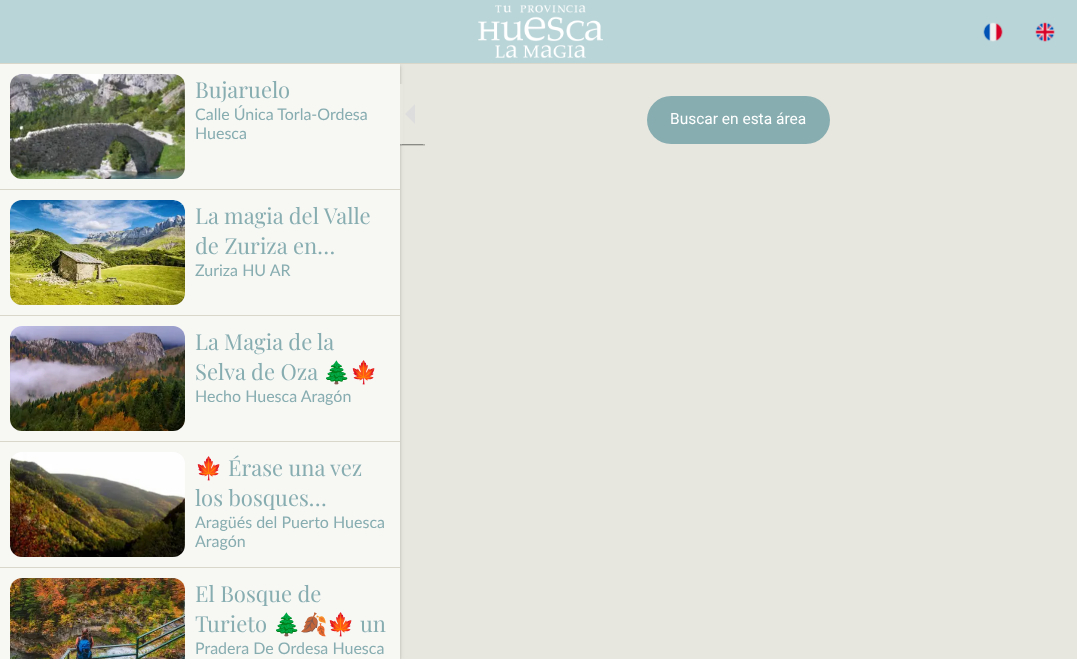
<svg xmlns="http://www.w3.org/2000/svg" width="1077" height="659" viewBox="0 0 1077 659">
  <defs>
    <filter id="blur1" x="-50%" y="-200%" width="200%" height="500%"><feGaussianBlur stdDeviation="2.5"/></filter>
    <filter id="blur2" x="-50%" y="-200%" width="200%" height="500%"><feGaussianBlur stdDeviation="1"/></filter>
  </defs>
  <rect width="100%" height="100%" fill="#e8e7df"/>
  <rect x="0" y="65" width="400" height="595" fill="#000000" fill-opacity="0.12" filter="url(#blur1)"/>
  <rect x="0" y="66" width="400" height="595" fill="#000000" fill-opacity="0.14" filter="url(#blur2)"/>
  <rect x="0" y="0" width="1077" height="63" fill="#bad5d8"/>
  <rect x="0" y="63" width="1077" height="1" fill="#d9d7ca"/>
  <image x="478" y="5" width="125" height="53" href="img1.png"/>
  <image x="983" y="22" width="20" height="20" href="img2.png"/>
  <image x="1035" y="22" width="20" height="20" href="img3.png"/>
  <rect x="0" y="64" width="400" height="125" fill="#f7f7f4"/>
  <image x="10" y="74" width="175" height="105" href="img4.png"/>
  <text x="195" y="98" font-family="Playfair Display" font-size="22" fill="#87adb0">Bujaruelo</text>
  <text x="195" y="120" font-family="Lato" font-size="16" fill="#87adb0">Calle Única Torla-Ordesa</text>
  <text x="195" y="139" font-family="Lato" font-size="16" fill="#87adb0">Huesca</text>
  <rect x="0" y="190" width="400" height="125" fill="#f7f7f4"/>
  <rect x="0" y="189" width="400" height="1" fill="#d9d7ca"/>
  <image x="10" y="200" width="175" height="105" href="img5.png"/>
  <text x="195" y="224" font-family="Playfair Display" font-size="22" fill="#87adb0">La magia del Valle</text>
  <text x="195" y="254" font-family="Playfair Display" font-size="22" fill="#87adb0">de Zuriza en…</text>
  <text x="195" y="276" font-family="Lato" font-size="16" fill="#87adb0">Zuriza HU AR</text>
  <rect x="0" y="316" width="400" height="125" fill="#f7f7f4"/>
  <rect x="0" y="315" width="400" height="1" fill="#d9d7ca"/>
  <image x="10" y="326" width="175" height="105" href="img6.png"/>
  <text x="195" y="350" font-family="Playfair Display" font-size="22" fill="#87adb0">La Magia de la</text>
  <text x="195" y="380" font-family="Playfair Display" font-size="22" fill="#87adb0">Selva de Oza</text>
  <text x="323" y="380" font-family="Noto Color Emoji" font-size="22" fill="#87adb0">🌲🍁</text>
  <text x="195" y="402" font-family="Lato" font-size="16" fill="#87adb0">Hecho Huesca Aragón</text>
  <rect x="0" y="442" width="400" height="125" fill="#f7f7f4"/>
  <rect x="0" y="441" width="400" height="1" fill="#d9d7ca"/>
  <image x="10" y="452" width="175" height="105" href="img7.png"/>
  <text x="195" y="476" font-family="Noto Color Emoji" font-size="22" fill="#87adb0">🍁</text>
  <text x="228" y="476" font-family="Playfair Display" font-size="22" fill="#87adb0">Érase una vez</text>
  <text x="195" y="506" font-family="Playfair Display" font-size="22" fill="#87adb0">los bosques…</text>
  <text x="195" y="528" font-family="Lato" font-size="16" fill="#87adb0">Aragüés del Puerto Huesca</text>
  <text x="195" y="547" font-family="Lato" font-size="16" fill="#87adb0">Aragón</text>
  <rect x="0" y="568" width="400" height="91" fill="#f7f7f4"/>
  <rect x="0" y="567" width="400" height="1" fill="#d9d7ca"/>
  <image x="10" y="578" width="175" height="81" href="img8.png"/>
  <text x="195" y="602" font-family="Playfair Display" font-size="22" fill="#87adb0">El Bosque de</text>
  <text x="195" y="632" font-family="Playfair Display" font-size="22" fill="#87adb0">Turieto</text>
  <text x="273" y="632" font-family="Noto Color Emoji" font-size="22" fill="#87adb0">🌲🍂🍁</text>
  <text x="360" y="632" font-family="Playfair Display" font-size="22" fill="#87adb0">un</text>
  <text x="195" y="654" font-family="Lato" font-size="16" fill="#87adb0">Pradera De Ordesa Huesca</text>
  <rect x="400" y="144" width="25" height="1" fill="#000000" fill-opacity="0.12"/>
  <rect x="400" y="144" width="25" height="2" fill="#000000" fill-opacity="0.14"/>
  <rect x="402" y="144" width="21" height="1" fill="#000000" fill-opacity="0.2"/>
  <rect x="400" y="84" width="3" height="60" fill="#e8e7df"/>
  <path d="M415 104V124L405 114Z" fill="#dddddd"/>
  <rect x="647" y="96" width="183" height="48" rx="24" fill="#87adb0"/>
  <text x="670" y="124" font-family="Roboto" font-size="15.5" fill="#ffffff">Buscar en esta área</text>
</svg>
